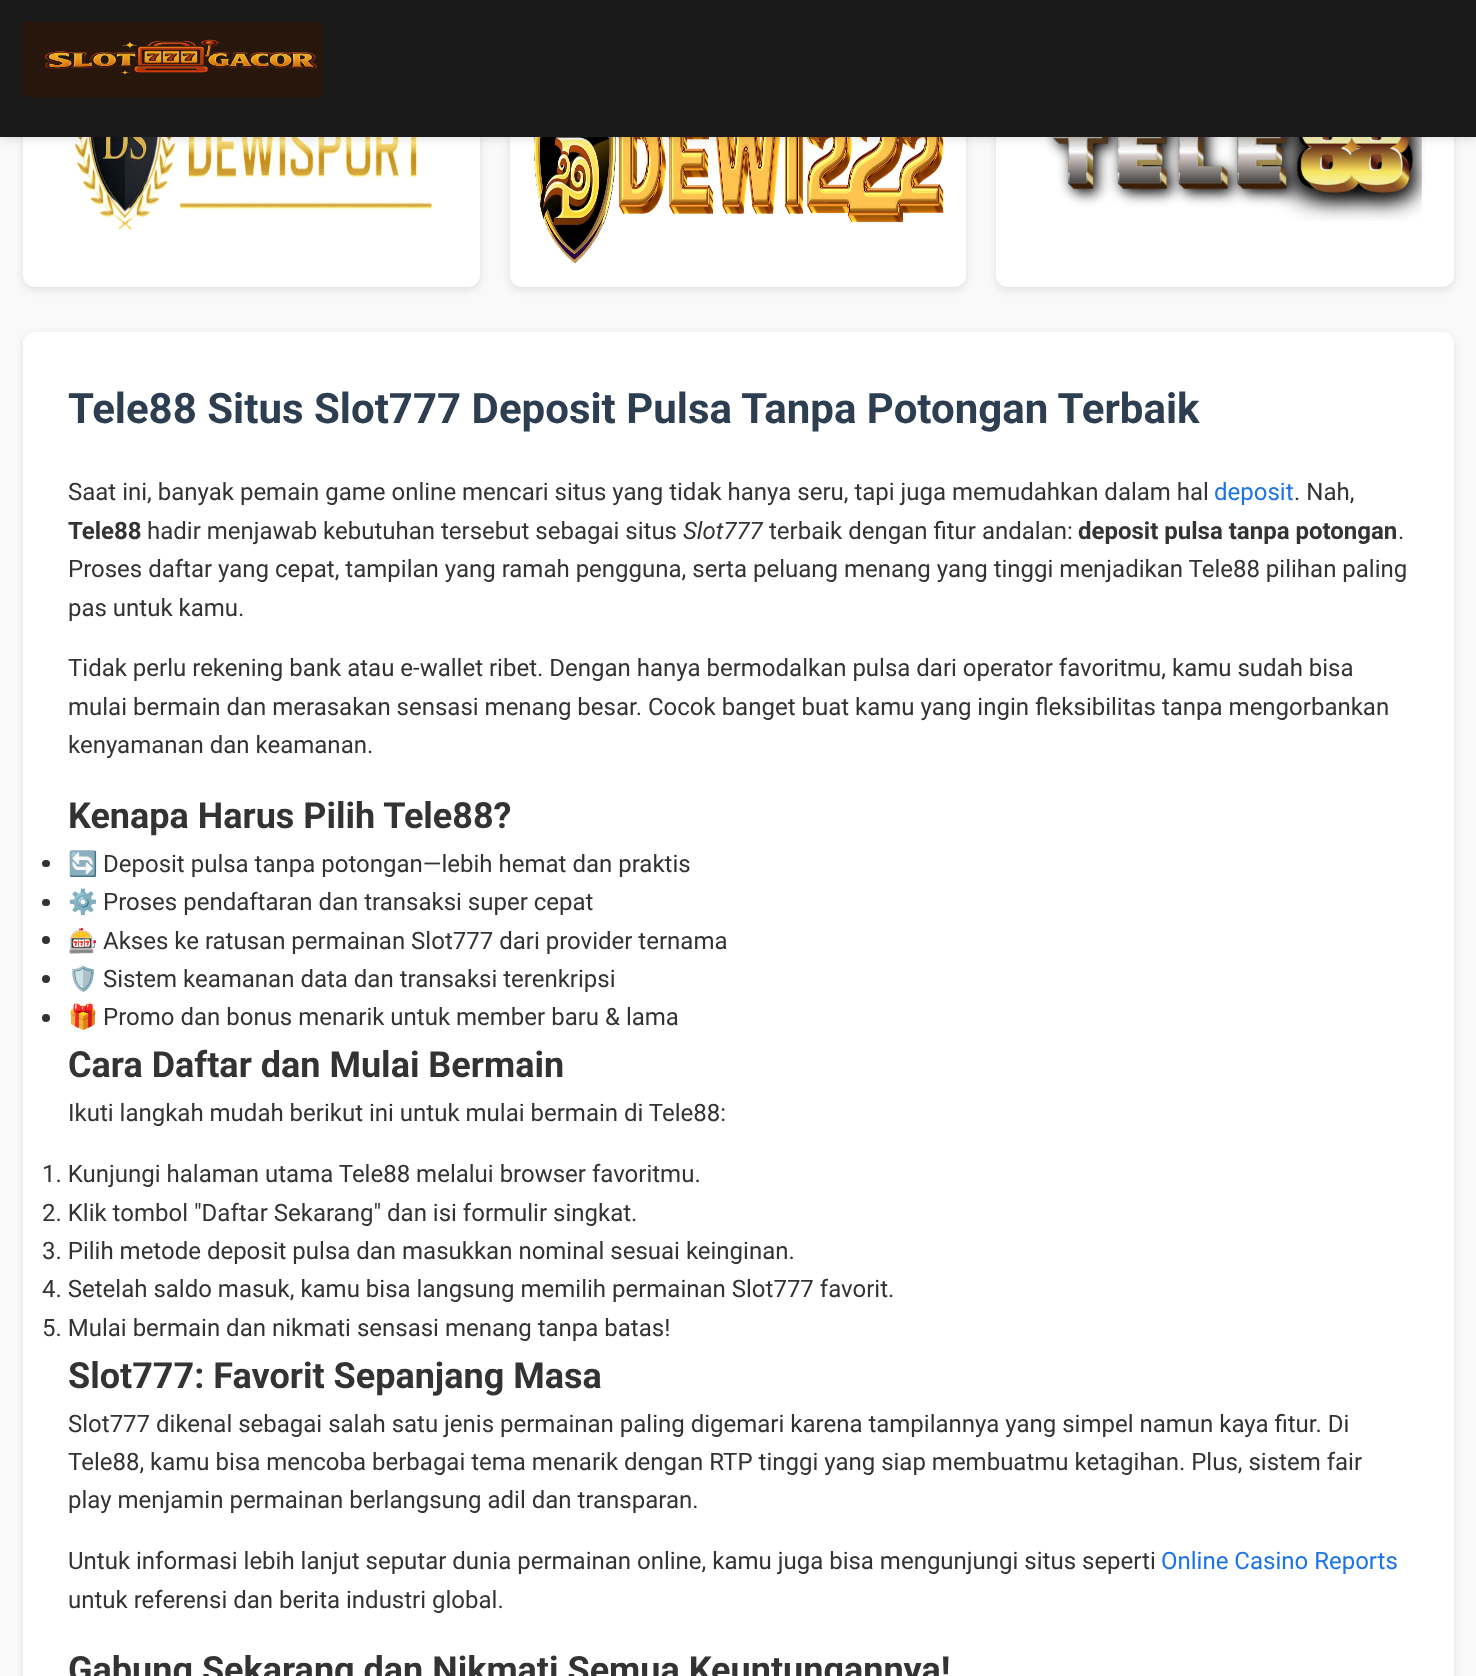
<svg xmlns="http://www.w3.org/2000/svg" width="1476" height="1676" viewBox="0 0 1476 1676">
  <defs>
    <filter id="blur1" x="-50%" y="-200%" width="200%" height="500%"><feGaussianBlur stdDeviation="4"/></filter>
  </defs>
  <rect width="100%" height="100%" fill="#f9f9f9"/>
  <rect x="23" y="24" width="457" height="266" rx="12" fill="#000000" fill-opacity="0.1" filter="url(#blur1)"/>
  <rect x="23" y="21" width="457" height="266" rx="12" fill="#ffffff"/>
  <image x="74" y="137" width="358" height="94" href="img2.png"/>
  <rect x="510" y="24" width="456" height="266" rx="12" fill="#000000" fill-opacity="0.1" filter="url(#blur1)"/>
  <rect x="510" y="21" width="456" height="266" rx="12" fill="#ffffff"/>
  <image x="534" y="137" width="410" height="127" href="img3.png"/>
  <rect x="996" y="24" width="458" height="266" rx="12" fill="#000000" fill-opacity="0.1" filter="url(#blur1)"/>
  <rect x="996" y="21" width="458" height="266" rx="12" fill="#ffffff"/>
  <image x="1045" y="137" width="380" height="84" href="img4.png"/>
  <rect x="0" y="3" width="1476" height="137" fill="#000000" fill-opacity="0.1" filter="url(#blur1)"/>
  <rect x="0" y="0" width="1476" height="137" fill="#1a1a1a"/>
  <image x="22" y="22" width="301" height="75" href="img1.png"/>
  <rect x="23" y="335" width="1431" height="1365" rx="12" fill="#000000" fill-opacity="0.1" filter="url(#blur1)"/>
  <rect x="23" y="332" width="1431" height="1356" rx="12" fill="#ffffff"/>
  <text x="68" y="423" font-family="Roboto" font-size="42" font-weight="bold" fill="#2c3e50">Tele88 Situs Slot777 Deposit Pulsa Tanpa Potongan Terbaik</text>
  <text x="68" y="500" font-family="Roboto" font-size="24" fill="#333333">Saat ini, banyak pemain game online mencari situs yang tidak hanya seru, tapi juga memudahkan dalam hal</text>
  <text x="1214" y="500" font-family="Roboto" font-size="24" fill="#1a73e8">deposit</text>
  <text x="1294" y="500" font-family="Roboto" font-size="24" fill="#333333">. Nah,</text>
  <text x="68" y="539" font-family="Roboto" font-size="24" font-weight="bold" fill="#333333">Tele88</text>
  <text x="147" y="539" font-family="Roboto" font-size="24" fill="#333333">hadir menjawab kebutuhan tersebut sebagai situs</text>
  <text x="683" y="539" font-family="Roboto" font-size="24" font-style="italic" fill="#333333">Slot777</text>
  <text x="769" y="539" font-family="Roboto" font-size="24" fill="#333333">terbaik dengan fitur andalan:</text>
  <text x="1078" y="539" font-family="Roboto" font-size="24" font-weight="bold" fill="#333333">deposit pulsa tanpa potongan</text>
  <text x="1398" y="539" font-family="Roboto" font-size="24" fill="#333333">.</text>
  <text x="68" y="577" font-family="Roboto" font-size="24" fill="#333333">Proses daftar yang cepat, tampilan yang ramah pengguna, serta peluang menang yang tinggi menjadikan Tele88 pilihan paling</text>
  <text x="68" y="616" font-family="Roboto" font-size="24" fill="#333333">pas untuk kamu.</text>
  <text x="68" y="676" font-family="Roboto" font-size="24" fill="#333333">Tidak perlu rekening bank atau e-wallet ribet. Dengan hanya bermodalkan pulsa dari operator favoritmu, kamu sudah bisa</text>
  <text x="68" y="715" font-family="Roboto" font-size="24" fill="#333333">mulai bermain dan merasakan sensasi menang besar. Cocok banget buat kamu yang ingin fleksibilitas tanpa mengorbankan</text>
  <text x="68" y="753" font-family="Roboto" font-size="24" fill="#333333">kenyamanan dan keamanan.</text>
  <text x="68" y="828" font-family="Roboto" font-size="36" font-weight="bold" fill="#333333">Kenapa Harus Pilih Tele88?</text>
  <rect x="42" y="860" width="8" height="7" rx="3.5" fill="#333333"/>
  <text x="68" y="872" font-family="Noto Color Emoji" font-size="24" fill="#333333">🔄</text>
  <text x="103" y="872" font-family="Roboto" font-size="24" fill="#333333">Deposit pulsa tanpa potongan—lebih hemat dan praktis</text>
  <rect x="42" y="899" width="8" height="7" rx="3.5" fill="#333333"/>
  <text x="68" y="910" font-family="Noto Color Emoji" font-size="24" fill="#333333">⚙️</text>
  <text x="103" y="910" font-family="Roboto" font-size="24" fill="#333333">Proses pendaftaran dan transaksi super cepat</text>
  <circle cx="46" cy="940" r="4" fill="#333333"/>
  <text x="68" y="949" font-family="Noto Color Emoji" font-size="24" fill="#333333">🎰</text>
  <text x="103" y="949" font-family="Roboto" font-size="24" fill="#333333">Akses ke ratusan permainan Slot777 dari provider ternama</text>
  <circle cx="46" cy="979" r="4" fill="#333333"/>
  <text x="68" y="987" font-family="Noto Color Emoji" font-size="24" fill="#333333">🛡️</text>
  <text x="103" y="987" font-family="Roboto" font-size="24" fill="#333333">Sistem keamanan data dan transaksi terenkripsi</text>
  <circle cx="46" cy="1018" r="4" fill="#333333"/>
  <text x="68" y="1025" font-family="Noto Color Emoji" font-size="24" fill="#333333">🎁</text>
  <text x="103" y="1025" font-family="Roboto" font-size="24" fill="#333333">Promo dan bonus menarik untuk member baru &amp; lama</text>
  <text x="68" y="1077" font-family="Roboto" font-size="36" font-weight="bold" fill="#333333">Cara Daftar dan Mulai Bermain</text>
  <text x="68" y="1121" font-family="Roboto" font-size="24" fill="#333333">Ikuti langkah mudah berikut ini untuk mulai bermain di Tele88:</text>
  <text x="42" y="1182" font-family="Roboto" font-size="24" fill="#333333">1. Kunjungi halaman utama Tele88 melalui browser favoritmu.</text>
  <text x="42" y="1221" font-family="Roboto" font-size="24" fill="#333333">2. Klik tombol "Daftar Sekarang" dan isi formulir singkat.</text>
  <text x="42" y="1259" font-family="Roboto" font-size="24" fill="#333333">3. Pilih metode deposit pulsa dan masukkan nominal sesuai keinginan.</text>
  <text x="42" y="1297" font-family="Roboto" font-size="24" fill="#333333">4. Setelah saldo masuk, kamu bisa langsung memilih permainan Slot777 favorit.</text>
  <text x="42" y="1336" font-family="Roboto" font-size="24" fill="#333333">5. Mulai bermain dan nikmati sensasi menang tanpa batas!</text>
  <text x="68" y="1388" font-family="Roboto" font-size="36" font-weight="bold" fill="#333333">Slot777: Favorit Sepanjang Masa</text>
  <text x="68" y="1432" font-family="Roboto" font-size="24" fill="#333333">Slot777 dikenal sebagai salah satu jenis permainan paling digemari karena tampilannya yang simpel namun kaya fitur. Di</text>
  <text x="68" y="1470" font-family="Roboto" font-size="24" fill="#333333">Tele88, kamu bisa mencoba berbagai tema menarik dengan RTP tinggi yang siap membuatmu ketagihan. Plus, sistem fair</text>
  <text x="68" y="1508" font-family="Roboto" font-size="24" fill="#333333">play menjamin permainan berlangsung adil dan transparan.</text>
  <text x="68" y="1569" font-family="Roboto" font-size="24" fill="#333333">Untuk informasi lebih lanjut seputar dunia permainan online, kamu juga bisa mengunjungi situs seperti</text>
  <text x="1161" y="1569" font-family="Roboto" font-size="24" fill="#1a73e8">Online Casino Reports</text>
  <text x="68" y="1608" font-family="Roboto" font-size="24" fill="#333333">untuk referensi dan berita industri global.</text>
  <text x="68" y="1682" font-family="Roboto" font-size="36" font-weight="bold" fill="#333333">Gabung Sekarang dan Nikmati Semua Keuntungannya!</text>
</svg>
